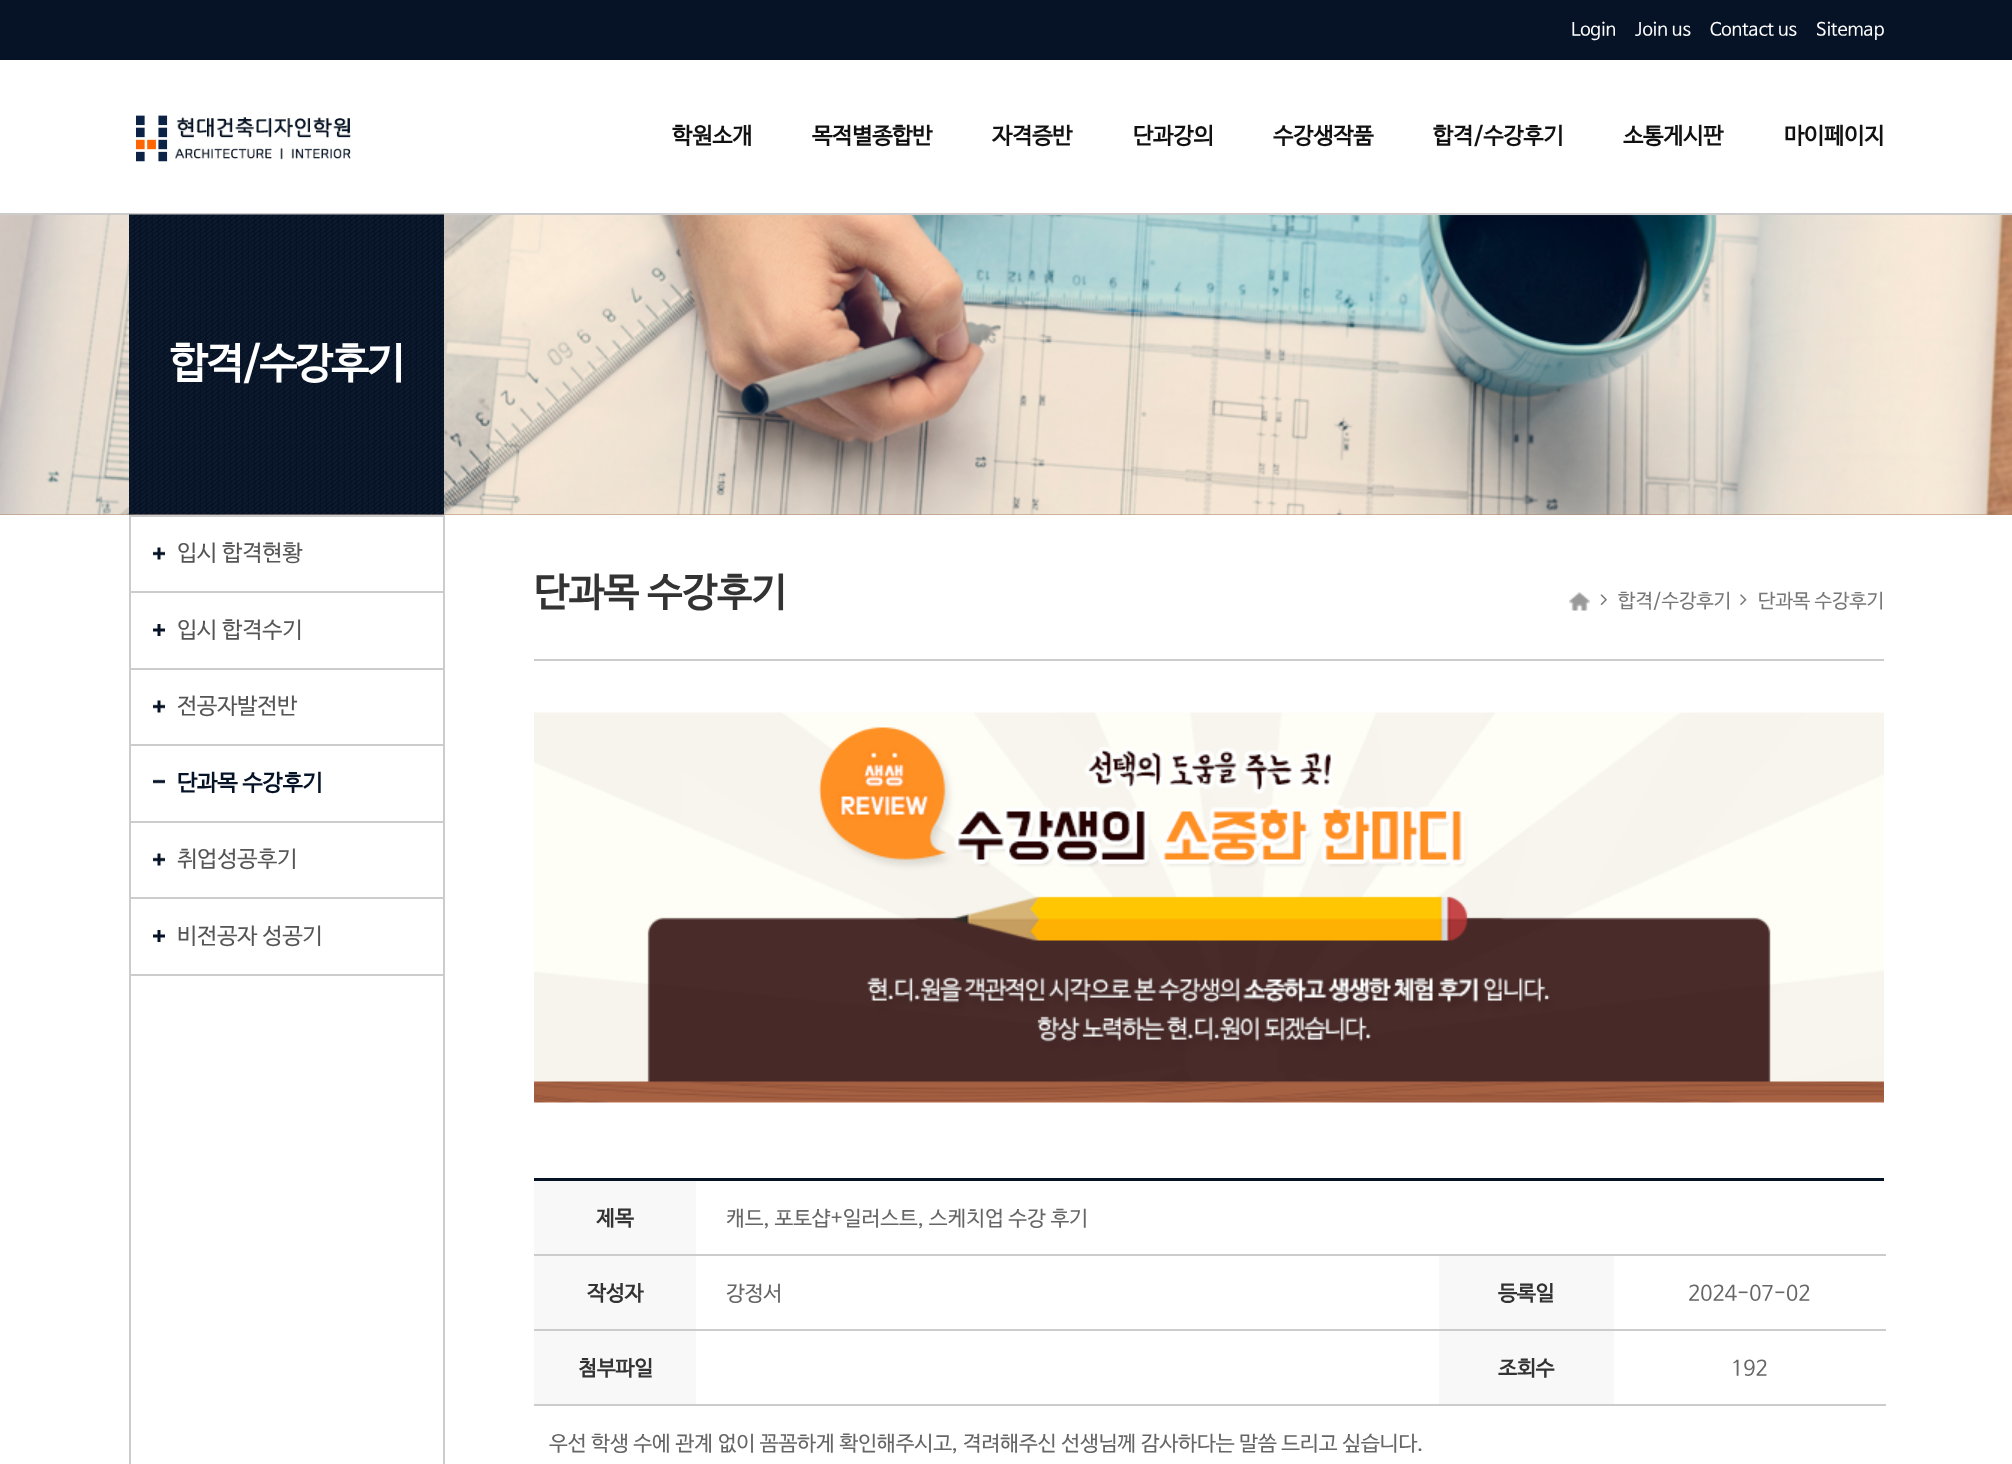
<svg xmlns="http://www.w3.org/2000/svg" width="2012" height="1464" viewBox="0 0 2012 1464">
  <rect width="100%" height="100%" fill="#ffffff"/>
  <rect x="0" y="0" width="2012" height="60" fill="#061326"/>
  <text x="1571" y="35" font-family="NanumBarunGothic" font-size="18" fill="#ffffff">Login</text>
  <text x="1635" y="35" font-family="NanumBarunGothic" font-size="18" fill="#ffffff">Join us</text>
  <text x="1710" y="35" font-family="NanumBarunGothic" font-size="18" fill="#ffffff">Contact us</text>
  <text x="1816" y="35" font-family="NanumBarunGothic" font-size="18" fill="#ffffff">Sitemap</text>
  <image x="136" y="115" width="215" height="47" href="img1.png"/>
  <text x="672" y="143" font-family="NanumBarunGothic" font-size="22.5" font-weight="bold" fill="#111111">학원소개</text>
  <text x="812" y="143" font-family="NanumBarunGothic" font-size="22.5" font-weight="bold" fill="#111111">목적별종합반</text>
  <text x="992" y="143" font-family="NanumBarunGothic" font-size="22.5" font-weight="bold" fill="#111111">자격증반</text>
  <text x="1133" y="143" font-family="NanumBarunGothic" font-size="22.5" font-weight="bold" fill="#111111">단과강의</text>
  <text x="1273" y="143" font-family="NanumBarunGothic" font-size="22.5" font-weight="bold" fill="#111111">수강생작품</text>
  <text x="1433" y="143" font-family="NanumBarunGothic" font-size="22.5" font-weight="bold" fill="#111111">합격/수강후기</text>
  <text x="1623" y="143" font-family="NanumBarunGothic" font-size="22.5" font-weight="bold" fill="#111111">소통게시판</text>
  <text x="1784" y="143" font-family="NanumBarunGothic" font-size="22.5" font-weight="bold" fill="#111111">마이페이지</text>
  <rect x="0" y="514" width="2012" height="1" fill="#af8262"/>
  <image x="0" y="215" width="2012" height="300" href="img2.png"/>
  <rect x="0" y="213" width="2012" height="2" fill="#cccccc"/>
  <image x="129" y="214" width="315" height="301" href="img3.png"/>
  <text x="170" y="377" font-family="NanumBarunGothic" font-size="42" font-weight="bold" letter-spacing="-1.5" fill="#ffffff">합격/수강후기</text>
  <rect x="129" y="515" width="2" height="949" fill="#cccccc"/>
  <rect x="131" y="515" width="312" height="2" fill="#cccccc"/>
  <rect x="131" y="591" width="312" height="2" fill="#cccccc"/>
  <image x="153" y="547" width="12" height="13" href="img4.png"/>
  <text x="177" y="560" font-family="NanumBarunGothic" font-size="22.5" fill="#555555">입시 합격현황</text>
  <rect x="131" y="668" width="312" height="2" fill="#cccccc"/>
  <image x="153" y="624" width="12" height="12" href="img5.png"/>
  <text x="177" y="637" font-family="NanumBarunGothic" font-size="22.5" fill="#555555">입시 합격수기</text>
  <rect x="131" y="744" width="312" height="2" fill="#cccccc"/>
  <image x="153" y="700" width="12" height="13" href="img4.png"/>
  <text x="177" y="713" font-family="NanumBarunGothic" font-size="22.5" fill="#555555">전공자발전반</text>
  <rect x="131" y="821" width="312" height="2" fill="#cccccc"/>
  <image x="153" y="779" width="12" height="5" href="img6.png"/>
  <text x="177" y="790" font-family="NanumBarunGothic" font-size="22.5" font-weight="bold" fill="#061326">단과목 수강후기</text>
  <rect x="131" y="897" width="312" height="2" fill="#cccccc"/>
  <image x="153" y="853" width="12" height="13" href="img4.png"/>
  <text x="177" y="866" font-family="NanumBarunGothic" font-size="22.5" fill="#555555">취업성공후기</text>
  <rect x="131" y="974" width="312" height="2" fill="#cccccc"/>
  <image x="153" y="930" width="12" height="12" href="img5.png"/>
  <text x="177" y="943" font-family="NanumBarunGothic" font-size="22.5" fill="#555555">비전공자 성공기</text>
  <rect x="443" y="515" width="2" height="949" fill="#cccccc"/>
  <rect x="534" y="659" width="1350" height="2" fill="#cccccc"/>
  <text x="534" y="605" font-family="NanumBarunGothic" font-size="39" font-weight="bold" fill="#333333">단과목 수강후기</text>
  <image x="1569" y="592" width="21" height="19" href="img7.png"/>
  <image x="1600" y="594" width="7" height="12" href="img8.png"/>
  <text x="1618" y="607" font-family="NanumBarunGothic" font-size="19.5" fill="#777777">합격/수강후기</text>
  <image x="1740" y="594" width="7" height="12" href="img9.png"/>
  <text x="1758" y="607" font-family="NanumBarunGothic" font-size="19.5" fill="#777777">단과목 수강후기</text>
  <image x="534" y="712" width="1350" height="391" href="img10.png"/>
  <rect x="534" y="1178" width="1350" height="3" fill="#061326"/>
  <rect x="534" y="1254" width="1352" height="2" fill="#cccccc"/>
  <rect x="534" y="1181" width="162" height="73" fill="#f8f8f8"/>
  <text x="596" y="1225" font-family="NanumBarunGothic" font-size="21" font-weight="bold" fill="#333333">제목</text>
  <text x="726" y="1225" font-family="NanumBarunGothic" font-size="21" fill="#666666">캐드, 포토샵+일러스트, 스케치업 수강 후기</text>
  <rect x="534" y="1329" width="1352" height="2" fill="#cccccc"/>
  <rect x="534" y="1256" width="162" height="73" fill="#f8f8f8"/>
  <text x="587" y="1300" font-family="NanumBarunGothic" font-size="21" font-weight="bold" fill="#333333">작성자</text>
  <text x="726" y="1300" font-family="NanumBarunGothic" font-size="21" fill="#666666">강정서</text>
  <rect x="1439" y="1256" width="175" height="73" fill="#f8f8f8"/>
  <text x="1498" y="1300" font-family="NanumBarunGothic" font-size="21" font-weight="bold" fill="#333333">등록일</text>
  <text x="1688" y="1300" font-family="NanumBarunGothic" font-size="21" fill="#666666">2024-07-02</text>
  <rect x="534" y="1404" width="1352" height="2" fill="#cccccc"/>
  <rect x="534" y="1331" width="162" height="73" fill="#f8f8f8"/>
  <text x="578" y="1375" font-family="NanumBarunGothic" font-size="21" font-weight="bold" fill="#333333">첨부파일</text>
  <rect x="1439" y="1331" width="175" height="73" fill="#f8f8f8"/>
  <text x="1498" y="1375" font-family="NanumBarunGothic" font-size="21" font-weight="bold" fill="#333333">조회수</text>
  <text x="1731" y="1375" font-family="NanumBarunGothic" font-size="21" fill="#666666">192</text>
  <text x="549" y="1450" font-family="NanumBarunGothic" font-size="21" fill="#666666">우선 학생 수에 관계 없이 꼼꼼하게 확인해주시고, 격려해주신 선생님께 감사하다는 말씀 드리고 싶습니다.</text>
</svg>
